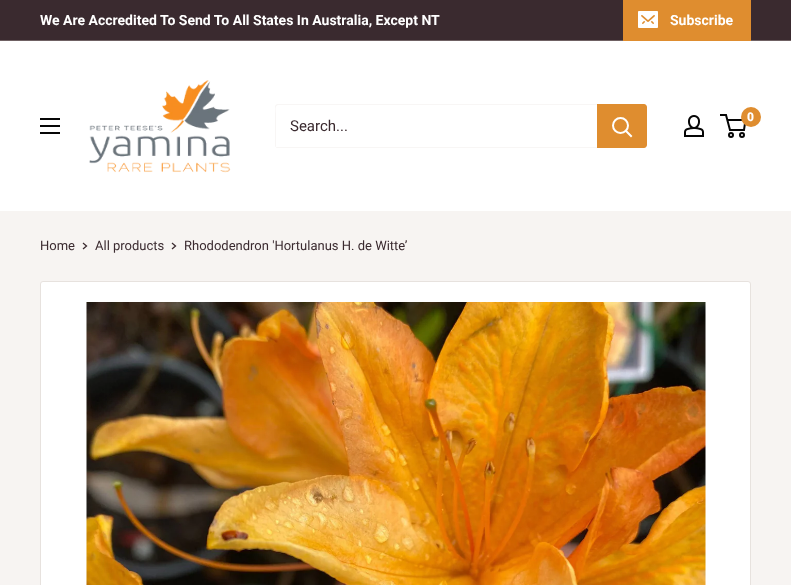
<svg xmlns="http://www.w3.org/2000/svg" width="791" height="585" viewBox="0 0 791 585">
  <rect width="100%" height="100%" fill="#f7f4f2"/>
  <rect x="0" y="0" width="791" height="40" fill="#3a2a2f"/>
  <rect x="0" y="40" width="791" height="1" fill="#6f6163"/>
  <text x="40" y="25" font-family="Roboto" font-size="14" font-weight="bold" fill="#ffffff">We Are Accredited To Send To All States In Australia, Except NT</text>
  <rect x="623" y="0" width="128" height="41" fill="#df8d2f"/>
  <image x="638" y="11" width="20" height="17" href="img1.png"/>
  <text x="670" y="25" font-family="Roboto" font-size="14" font-weight="bold" fill="#ffffff">Subscribe</text>
  <rect x="0" y="41" width="791" height="170" fill="#ffffff"/>
  <image x="89" y="80" width="142" height="93" href="img2.png"/>
  <image x="684" y="115" width="20" height="22" href="img3.png"/>
  <circle cx="731" cy="135" r="2" fill="none" stroke="#060606" stroke-width="2"/>
  <circle cx="742" cy="135" r="2" fill="none" stroke="#060606" stroke-width="2"/>
  <path d="M727.5 120H745.5L744 130H730L726 115H720" fill="none" stroke="#060606" stroke-width="2"/>
  <circle cx="751" cy="117" r="10" fill="#df8d2f"/>
  <text x="747" y="121" font-family="Roboto" font-size="12" font-weight="900" fill="#ffffff">0</text>
  <image x="40" y="118" width="20" height="16" href="img4.png"/>
  <path d="M276 147C276 148 277 148 278 148H644C646 148 647 147 647 145V107C647 106 647 105 646 105V138C646 140 648 147 643 147Z" fill="#f8f6f5"/>
  <path d="M279 105H646C646 104 645 104 644 104H278C276 104 275 105 275 107V145C275 146 275 147 276 147V114C276 112 274 105 279 105Z" fill="#f8f6f5"/>
  <text x="290" y="131" font-family="Roboto" font-size="15" fill="#3a2a2f">Search...</text>
  <path d="M597 104H644C645.5 104 647 105.5 647 107V145C647 146.5 645.5 148 644 148H597Z" fill="#df8d2f"/>
  <path d="M631 136L626 131" fill="none" stroke="#ffffff" stroke-width="2" stroke-linecap="square"/>
  <circle cx="620.5" cy="125.5" r="7.5" fill="none" stroke="#ffffff" stroke-width="2"/>
  <text x="40" y="250" font-family="Roboto" font-size="13" fill="#3a2a2f">Home</text>
  <path d="M83.5 243.5L86.5 246L83.5 248.5" fill="none" stroke="#3a2a2f" stroke-width="1.3" stroke-linecap="square"/>
  <text x="95" y="250" font-family="Roboto" font-size="13" fill="#3a2a2f">All products</text>
  <path d="M172.5 243.5L175.5 246L172.5 248.5" fill="none" stroke="#3a2a2f" stroke-width="1.3" stroke-linecap="square"/>
  <text x="184" y="250" font-family="Roboto" font-size="13" fill="#3a2a2f">Rhododendron 'Hortulanus H. de Witte’</text>
  <rect x="40.5" y="281.5" width="710" height="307" rx="2.5" fill="#ffffff" stroke="#e7e2de"/>
  <image x="86" y="302" width="620" height="283" href="img5.png"/>
</svg>
